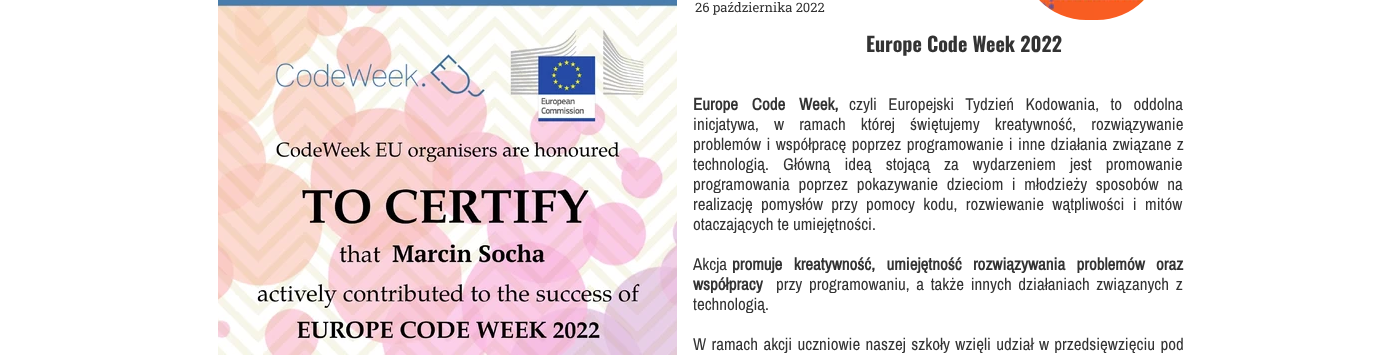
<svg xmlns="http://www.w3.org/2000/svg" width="1387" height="355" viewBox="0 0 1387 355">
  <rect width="100%" height="100%" fill="#ffffff"/>
  <image x="218" y="0" width="459" height="355" href="img1.png"/>
  <text x="695" y="12" font-family="Roboto Slab" font-size="13" fill="#333333">26 października 2022</text>
  <image x="1039" y="0" width="105" height="20" href="img2.png"/>
  <text x="866" y="52" font-family="Oswald" font-size="20" font-weight="bold" fill="#333333">Europe Code Week 2022</text>
  <text x="693" y="110" word-spacing="10" font-family="Archivo Narrow" font-size="17" font-weight="bold" fill="#333333">Europe Code Week,</text>
  <text x="849" y="110" word-spacing="7.5" font-family="Archivo Narrow" font-size="17" fill="#333333">czyli Europejski Tydzień Kodowania, to oddolna</text>
  <text x="693" y="130" word-spacing="11.25" font-family="Archivo Narrow" font-size="17" fill="#333333">inicjatywa, w ramach której świętujemy kreatywność, rozwiązywanie</text>
  <text x="693" y="150" word-spacing="1.5" font-family="Archivo Narrow" font-size="17" fill="#333333">problemów i współpracę poprzez programowanie i inne działania związane z</text>
  <text x="693" y="170" word-spacing="10.25" font-family="Archivo Narrow" font-size="17" fill="#333333">technologią. Główną ideą stojącą za wydarzeniem jest promowanie</text>
  <text x="693" y="190" word-spacing="4.75" font-family="Archivo Narrow" font-size="17" fill="#333333">programowania poprzez pokazywanie dzieciom i młodzieży sposobów na</text>
  <text x="693" y="210" word-spacing="4.5" font-family="Archivo Narrow" font-size="17" fill="#333333">realizację pomysłów przy pomocy kodu, rozwiewanie wątpliwości i mitów</text>
  <text x="693" y="230" font-family="Archivo Narrow" font-size="17" fill="#333333">otaczających te umiejętności.</text>
  <text x="693" y="270" font-family="Archivo Narrow" font-size="17" fill="#333333">Akcja</text>
  <text x="732" y="270" word-spacing="7.5" font-family="Archivo Narrow" font-size="17" font-weight="bold" fill="#333333">promuje kreatywność, umiejętność rozwiązywania problemów oraz</text>
  <text x="693" y="290" font-family="Archivo Narrow" font-size="17" font-weight="bold" fill="#333333">współpracy</text>
  <text x="776" y="290" word-spacing="2.75" font-family="Archivo Narrow" font-size="17" fill="#333333">przy programowaniu, a także innych działaniach związanych z</text>
  <text x="693" y="310" font-family="Archivo Narrow" font-size="17" fill="#333333">technologią.</text>
  <text x="693" y="350" word-spacing="1.5" font-family="Archivo Narrow" font-size="17" fill="#333333">W ramach akcji uczniowie naszej szkoły wzięli udział w przedsięwzięciu pod</text>
</svg>
